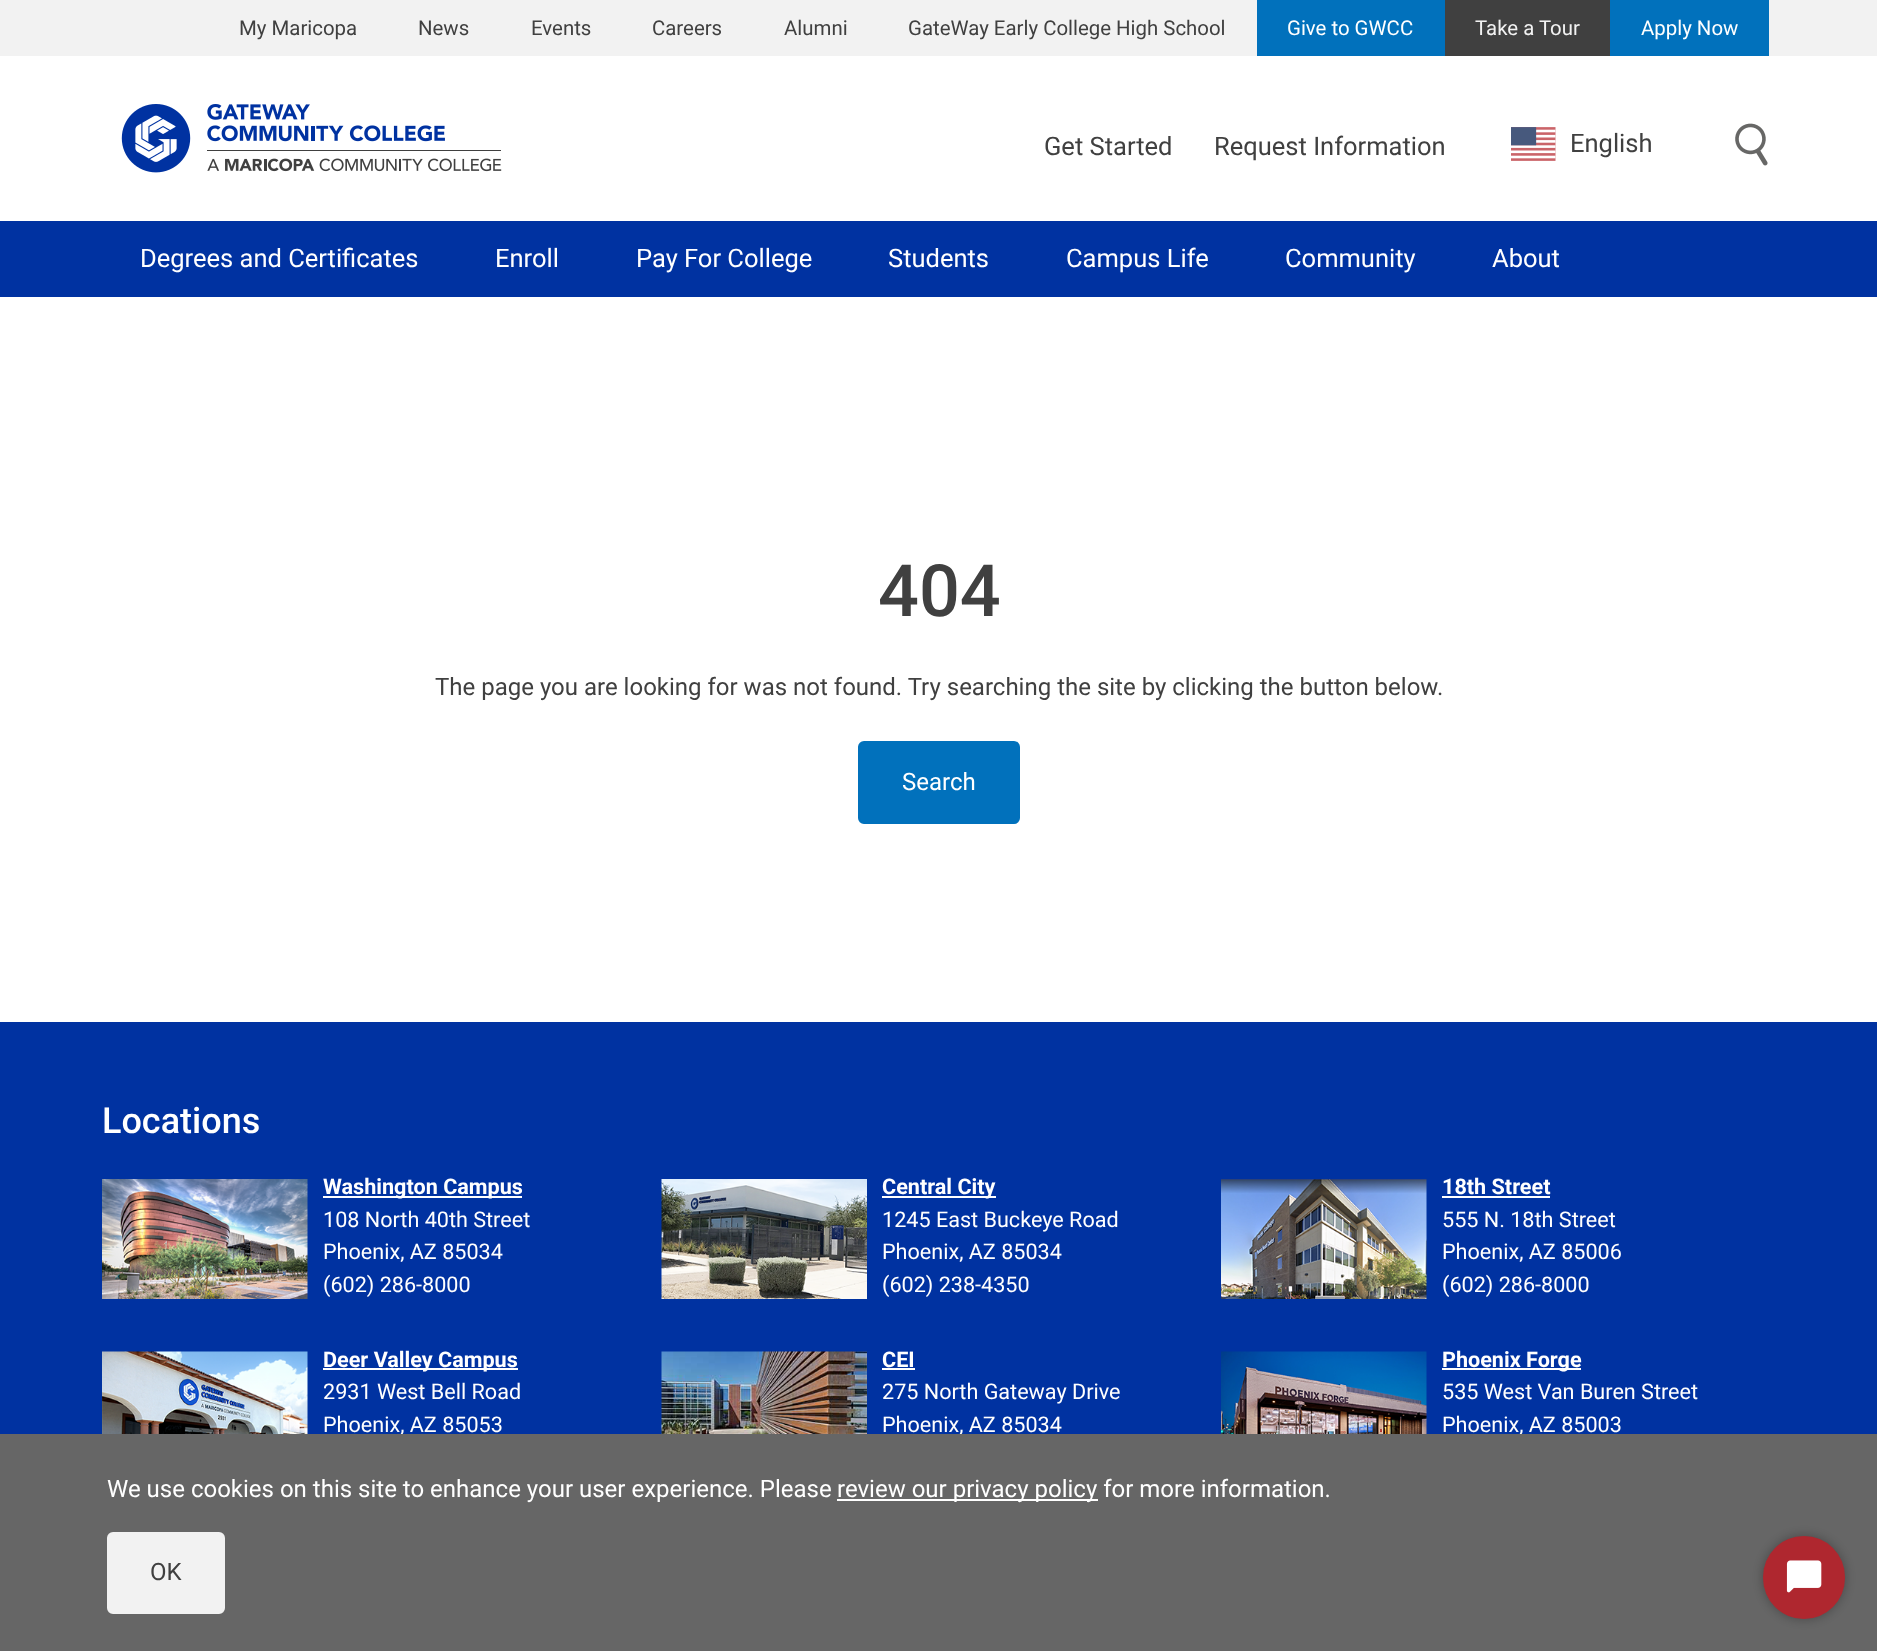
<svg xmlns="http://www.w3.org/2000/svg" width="1877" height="1651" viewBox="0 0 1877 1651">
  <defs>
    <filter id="blur1" x="-50%" y="-200%" width="200%" height="500%"><feGaussianBlur stdDeviation="6"/></filter>
  </defs>
  <rect width="100%" height="100%" fill="#ffffff"/>
  <rect x="0" y="0" width="1877" height="56" fill="#f2f2f2"/>
  <text x="239" y="35" font-family="Roboto" font-size="20.4" fill="#404040">My Maricopa</text>
  <text x="418" y="35" font-family="Roboto" font-size="20.4" fill="#404040">News</text>
  <text x="531" y="35" font-family="Roboto" font-size="20.4" fill="#404040">Events</text>
  <text x="652" y="35" font-family="Roboto" font-size="20.4" fill="#404040">Careers</text>
  <text x="784" y="35" font-family="Roboto" font-size="20.4" fill="#404040">Alumni</text>
  <text x="908" y="35" font-family="Roboto" font-size="20.4" fill="#404040">GateWay Early College High School</text>
  <rect x="1257" y="0" width="188" height="56" fill="#0171bc"/>
  <text x="1287" y="35" font-family="Roboto" font-size="20.4" fill="#ffffff">Give to GWCC</text>
  <rect x="1445" y="0" width="165" height="56" fill="#404040"/>
  <text x="1475" y="35" font-family="Roboto" font-size="20.4" fill="#f2f2f2">Take a Tour</text>
  <rect x="1610" y="0" width="159" height="56" fill="#0171bc"/>
  <text x="1641" y="35" font-family="Roboto" font-size="20.4" fill="#ffffff">Apply Now</text>
  <image x="121" y="104" width="70" height="69" href="img1.png"/>
  <image x="207" y="104" width="295" height="68" href="img2.png"/>
  <text x="1044" y="155" font-family="Roboto" font-size="25.5" fill="#404040">Get Started</text>
  <text x="1214" y="155" font-family="Roboto" font-size="25.5" fill="#404040">Request Information</text>
  <image x="1511" y="127" width="45" height="34" href="img3.png"/>
  <text x="1570" y="152" font-family="Roboto" font-size="25.5" fill="#404040">English</text>
  <image x="1735" y="123" width="33" height="43" href="img4.png"/>
  <rect x="0" y="221" width="1877" height="76" fill="#0032a1"/>
  <text x="140" y="267" font-family="Roboto" font-size="25.5" fill="#ffffff">Degrees and Certificates</text>
  <text x="495" y="267" font-family="Roboto" font-size="25.5" fill="#ffffff">Enroll</text>
  <text x="636" y="267" font-family="Roboto" font-size="25.5" fill="#ffffff">Pay For College</text>
  <text x="888" y="267" font-family="Roboto" font-size="25.5" fill="#ffffff">Students</text>
  <text x="1066" y="267" font-family="Roboto" font-size="25.5" fill="#ffffff">Campus Life</text>
  <text x="1285" y="267" font-family="Roboto" font-size="25.5" fill="#ffffff">Community</text>
  <text x="1492" y="267" font-family="Roboto" font-size="25.5" fill="#ffffff">About</text>
  <text x="878" y="616" font-family="Roboto" font-size="72" font-weight="500" fill="#404040">404</text>
  <text x="435" y="695" font-family="Roboto" font-size="24" fill="#404040">The page you are looking for was not found. Try searching the site by clicking the button below.</text>
  <rect x="859" y="742" width="160" height="81" rx="5" fill="#0171bc" stroke="#0171bc" stroke-width="2"/>
  <text x="902" y="790" font-family="Roboto" font-size="24" fill="#ffffff">Search</text>
  <rect x="0" y="1022" width="1877" height="412" fill="#0032a1"/>
  <text x="102" y="1133" font-family="Roboto" font-size="36" font-weight="500" fill="#ffffff">Locations</text>
  <image x="102" y="1179" width="206" height="120" href="img5.png"/>
  <rect x="323" y="1196" width="199" height="2" fill="#ffffff"/>
  <text x="323" y="1194" font-family="Roboto" font-size="21.6" font-weight="bold" fill="#ffffff">Washington Campus</text>
  <text x="323" y="1227" font-family="Roboto" font-size="21.6" fill="#ffffff">108 North 40th Street</text>
  <text x="323" y="1259" font-family="Roboto" font-size="21.6" fill="#ffffff">Phoenix, AZ 85034</text>
  <text x="323" y="1292" font-family="Roboto" font-size="21.6" fill="#ffffff">(602) 286-8000</text>
  <image x="661" y="1179" width="206" height="120" href="img6.png"/>
  <rect x="882" y="1196" width="114" height="2" fill="#ffffff"/>
  <text x="882" y="1194" font-family="Roboto" font-size="21.6" font-weight="bold" fill="#ffffff">Central City</text>
  <text x="882" y="1227" font-family="Roboto" font-size="21.6" fill="#ffffff">1245 East Buckeye Road</text>
  <text x="882" y="1259" font-family="Roboto" font-size="21.6" fill="#ffffff">Phoenix, AZ 85034</text>
  <text x="882" y="1292" font-family="Roboto" font-size="21.6" fill="#ffffff">(602) 238-4350</text>
  <image x="1221" y="1179" width="206" height="120" href="img7.png"/>
  <text x="1442" y="1194" font-family="Roboto" font-size="21.6" font-weight="bold" fill="#ffffff">18th Street</text>
  <rect x="1442" y="1196" width="108" height="2" fill="#ffffff"/>
  <text x="1442" y="1227" font-family="Roboto" font-size="21.6" fill="#ffffff">555 N. 18th Street</text>
  <text x="1442" y="1259" font-family="Roboto" font-size="21.6" fill="#ffffff">Phoenix, AZ 85006</text>
  <text x="1442" y="1292" font-family="Roboto" font-size="21.6" fill="#ffffff">(602) 286-8000</text>
  <image x="102" y="1351" width="206" height="83" href="img8.png"/>
  <rect x="323" y="1368" width="195" height="2" fill="#ffffff"/>
  <text x="323" y="1367" font-family="Roboto" font-size="21.6" font-weight="bold" fill="#ffffff">Deer Valley Campus</text>
  <text x="323" y="1399" font-family="Roboto" font-size="21.6" fill="#ffffff">2931 West Bell Road</text>
  <text x="323" y="1432" font-family="Roboto" font-size="21.6" fill="#ffffff">Phoenix, AZ 85053</text>
  <image x="661" y="1351" width="206" height="83" href="img9.png"/>
  <text x="882" y="1367" font-family="Roboto" font-size="21.6" font-weight="bold" fill="#ffffff">CEI</text>
  <rect x="882" y="1368" width="33" height="2" fill="#ffffff"/>
  <text x="882" y="1399" font-family="Roboto" font-size="21.6" fill="#ffffff">275 North Gateway Drive</text>
  <text x="882" y="1432" font-family="Roboto" font-size="21.6" fill="#ffffff">Phoenix, AZ 85034</text>
  <image x="1221" y="1351" width="206" height="83" href="img10.png"/>
  <rect x="1442" y="1368" width="139" height="2" fill="#ffffff"/>
  <text x="1442" y="1367" font-family="Roboto" font-size="21.6" font-weight="bold" fill="#ffffff">Phoenix Forge</text>
  <text x="1442" y="1399" font-family="Roboto" font-size="21.6" fill="#ffffff">535 West Van Buren Street</text>
  <text x="1442" y="1432" font-family="Roboto" font-size="21.6" fill="#ffffff">Phoenix, AZ 85003</text>
  <rect x="0" y="1434" width="1877" height="217" fill="#666666"/>
  <text x="107" y="1497" font-family="Roboto" font-size="24" fill="#ffffff">We use cookies on this site to enhance your user experience. Please</text>
  <rect x="837" y="1499" width="261" height="2" fill="#ffffff"/>
  <text x="837" y="1497" font-family="Roboto" font-size="24" fill="#ffffff">review our privacy policy for more information.</text>
  <rect x="108" y="1533" width="116" height="80" rx="5" fill="#f2f2f2" stroke="#f2f2f2" stroke-width="2"/>
  <text x="150" y="1580" font-family="Roboto" font-size="24" fill="#404040">OK</text>
  <rect x="1763" y="1536" width="82" height="83" rx="41" fill="#000000" fill-opacity="0.3" filter="url(#blur1)"/>
  <rect x="1763" y="1536" width="82" height="83" rx="41" fill="#af272f"/>
  <image x="1786" y="1560" width="36" height="33" href="img11.png"/>
</svg>
